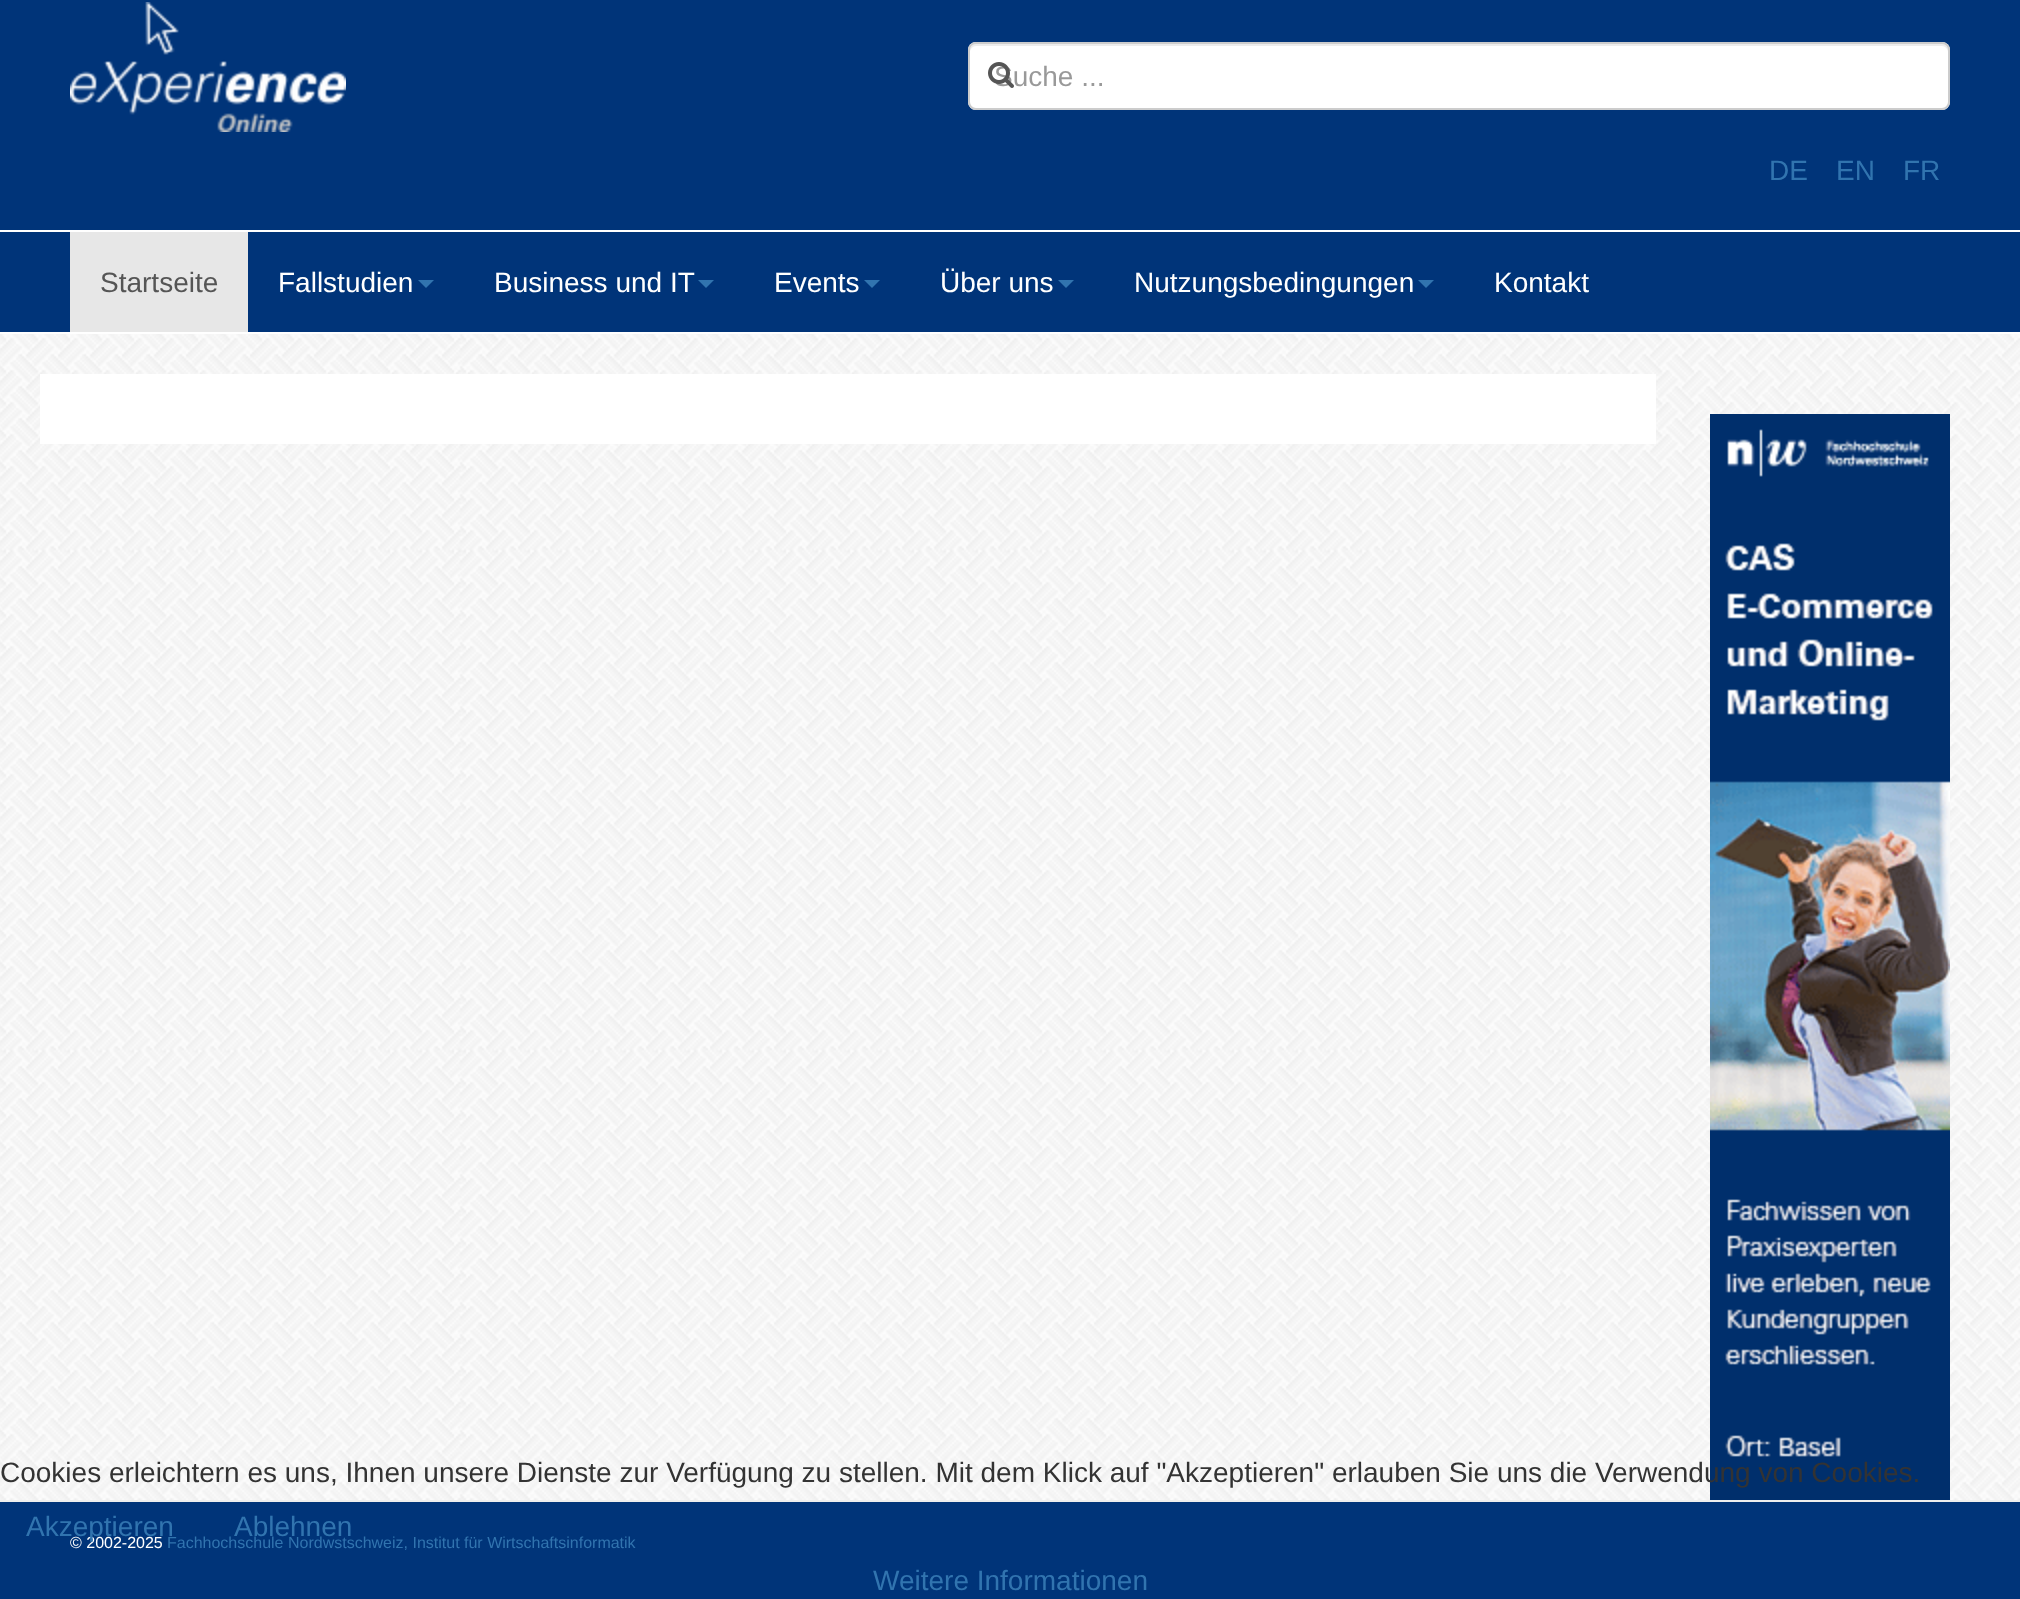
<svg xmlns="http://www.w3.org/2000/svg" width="2020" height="1599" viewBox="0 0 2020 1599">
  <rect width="100%" height="100%" fill="#ffffff"/>
  <image x="0" y="334" width="2020" height="1166" href="img1.png"/>
  <rect x="0" y="0" width="2020" height="230" fill="#003479"/>
  <image x="70" y="2" width="276" height="130" href="img2.png"/>
  <rect x="968" y="42" width="982" height="68" rx="8" fill="#ffffff"/>
  <path d="M976 46H1942C1945 46 1948 49 1948 52V50C1948 47 1945 44 1942 44H976C973 44 970 47 970 50V52C970 49 973 46 976 46Z" fill="#ececec"/>
  <rect x="969" y="43" width="980" height="66" rx="7" fill="none" stroke="#cccccc" stroke-width="2"/>
  <text x="994" y="86" font-family="Liberation Sans" font-size="28" fill="#999999">Suche ...</text>
  <image x="988" y="62" width="26" height="26" href="img3.png"/>
  <text x="1769" y="180" font-family="Liberation Sans" font-size="28" fill="#3174af">DE</text>
  <text x="1836" y="180" font-family="Liberation Sans" font-size="28" fill="#3174af">EN</text>
  <text x="1903" y="180" font-family="Liberation Sans" font-size="28" fill="#3174af">FR</text>
  <rect x="0" y="232" width="2020" height="100" fill="#003479"/>
  <rect x="70" y="232" width="178" height="100" fill="#e7e7e7"/>
  <text x="100" y="292" font-family="Liberation Sans" font-size="28" fill="#555555">Startseite</text>
  <text x="278" y="292" font-family="Liberation Sans" font-size="28" fill="#ffffff">Fallstudien</text>
  <path d="M418 280H434L426 288Z" fill="#3174af"/>
  <text x="494" y="292" font-family="Liberation Sans" font-size="28" fill="#ffffff">Business und IT</text>
  <path d="M698 280H714L706 288Z" fill="#3174af"/>
  <text x="774" y="292" font-family="Liberation Sans" font-size="28" fill="#ffffff">Events</text>
  <path d="M864 280H880L872 288Z" fill="#3174af"/>
  <text x="940" y="292" font-family="Liberation Sans" font-size="28" fill="#ffffff">Über uns</text>
  <path d="M1058 280H1074L1066 288Z" fill="#3174af"/>
  <text x="1134" y="292" font-family="Liberation Sans" font-size="28" fill="#ffffff">Nutzungsbedingungen</text>
  <path d="M1418 280H1434L1426 288Z" fill="#3174af"/>
  <text x="1494" y="292" font-family="Liberation Sans" font-size="28" fill="#ffffff">Kontakt</text>
  <rect x="40" y="374" width="1616" height="70" fill="#ffffff"/>
  <image x="1710" y="414" width="240" height="1086" href="img4.png"/>
  <rect x="0" y="1502" width="2020" height="97" fill="#003479"/>
  <rect x="0" y="1500" width="2020" height="2" fill="#eeeeee"/>
  <text x="70" y="1548" font-family="Liberation Sans" font-size="16" fill="#ffffff">© 2002-2025</text>
  <text x="167" y="1548" font-family="Liberation Sans" font-size="16" fill="#3174af">Fachhochschule Nordwstschweiz, Institut für Wirtschaftsinformatik</text>
  <text x="0" y="1482" font-family="Liberation Sans" font-size="28" fill="#333333">Cookies erleichtern es uns, Ihnen unsere Dienste zur Verfügung zu stellen. Mit dem Klick auf "Akzeptieren" erlauben Sie uns die Verwendung von Cookies.</text>
  <text x="26" y="1536" font-family="Liberation Sans" font-size="28" fill="#3174af">Akzeptieren</text>
  <text x="234" y="1536" font-family="Liberation Sans" font-size="28" fill="#3174af">Ablehnen</text>
  <text x="873" y="1590" font-family="Liberation Sans" font-size="28" fill="#3174af">Weitere Informationen</text>
</svg>
